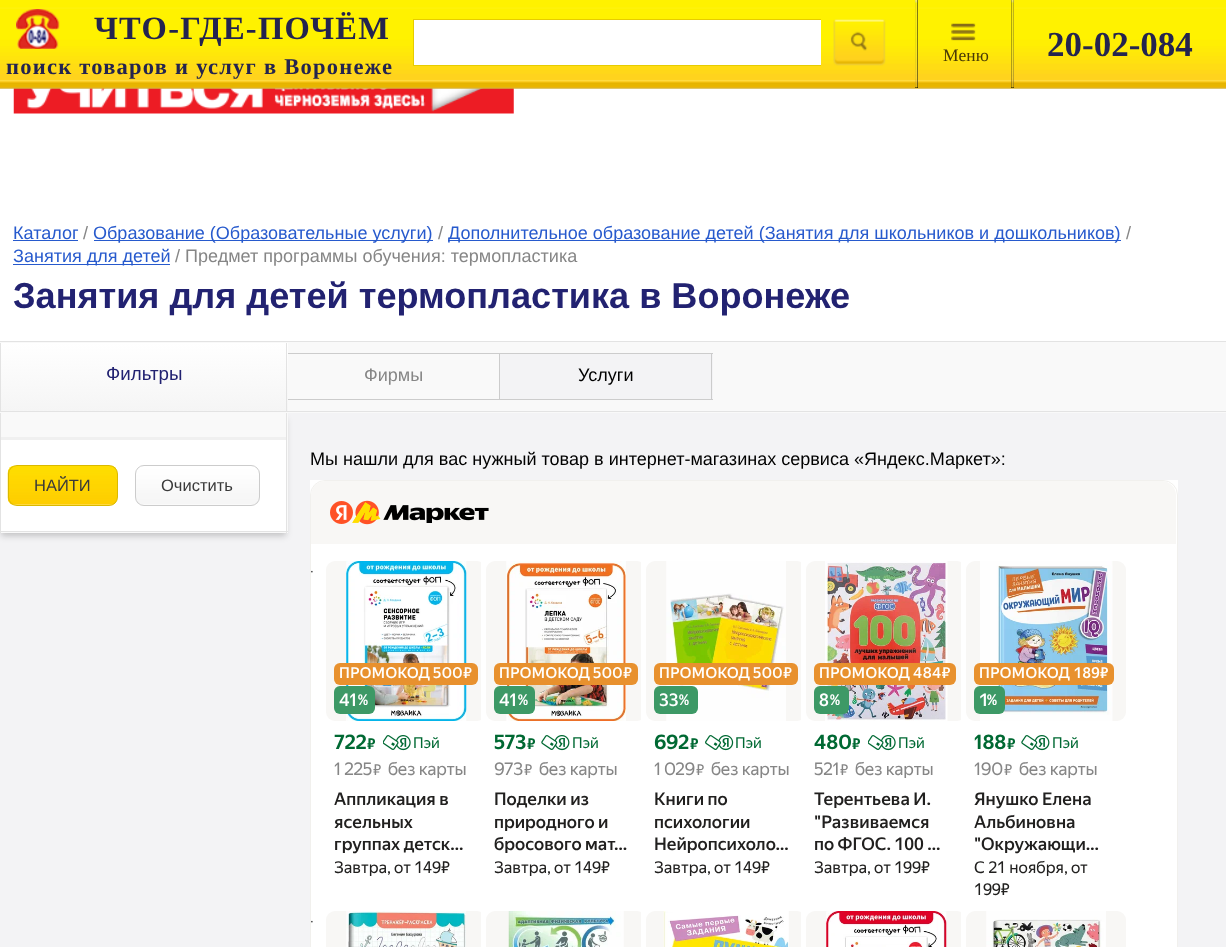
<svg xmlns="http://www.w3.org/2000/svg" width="1226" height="947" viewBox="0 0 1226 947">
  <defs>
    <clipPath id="clip1"><rect x="400" y="0" width="421" height="101"/></clipPath>
    <filter id="blur1" x="-50%" y="-200%" width="200%" height="500%"><feGaussianBlur stdDeviation="3"/></filter>
    <linearGradient id="g1" gradientUnits="userSpaceOnUse" x1="144" y1="411" x2="144" y2="343"><stop offset="0" stop-color="#f5f5f5"/><stop offset="1" stop-color="#ffffff"/></linearGradient>
  </defs>
  <rect width="100%" height="100%" fill="#f3f3f5"/>
  <rect x="0" y="88" width="1226" height="253" fill="#ffffff"/>
  <image x="13" y="88" width="501" height="26" href="img7.png"/>
  <image x="0" y="0" width="1226" height="89" href="img1.png"/>
  <image x="16" y="9" width="44" height="40" href="img2.png"/>
  <text x="94" y="39" font-family="Liberation Serif" font-size="32.5" font-weight="bold" letter-spacing="1.25" fill="#24244f">ЧТО-ГДЕ-ПОЧЁМ</text>
  <text x="6" y="74" font-family="Liberation Serif" font-size="22.5" font-weight="bold" letter-spacing="1.25" fill="#24244f">поиск товаров и услуг в Воронеже</text>
  <rect x="414" y="20" width="407" height="45" fill="#ffffff"/>
  <g clip-path="url(#clip1)">
    <rect x="413.5" y="19.5" width="420" height="46" fill="none" stroke="#e6cc00"/>
  </g>
  <image x="833" y="19" width="53" height="47" href="img3.png"/>
  <rect x="915" y="0" width="3" height="88" fill="#000000"/>
  <image x="915" y="0" width="3" height="88" href="img4.png"/>
  <image x="951" y="23" width="25" height="18" href="img5.png"/>
  <text x="943" y="61" font-family="Liberation Serif" font-size="17.5" fill="#4a3a06">Mеню</text>
  <rect x="1011" y="0" width="3" height="88" fill="#000000"/>
  <image x="1011" y="0" width="3" height="88" href="img6.png"/>
  <text x="1047" y="56" font-family="Liberation Serif" font-size="35" font-weight="bold" fill="#24244f">20-02-084</text>
  <text x="13" y="239" font-family="Liberation Sans" font-size="18.05" fill="#275acd">Каталог</text>
  <rect x="13" y="240" width="65" height="1" fill="#275acd"/>
  <text x="83" y="239" font-family="Liberation Sans" font-size="18.05" fill="#868686">/</text>
  <rect x="94" y="240" width="339" height="1" fill="#275acd"/>
  <text x="93" y="239" font-family="Liberation Sans" font-size="18.05" fill="#275acd">Образование (Образовательные услуги)</text>
  <text x="438" y="239" font-family="Liberation Sans" font-size="18.05" fill="#868686">/</text>
  <rect x="448" y="240" width="673" height="1" fill="#275acd"/>
  <text x="448" y="239" font-family="Liberation Sans" font-size="18.05" fill="#275acd">Дополнительное образование детей (Занятия для школьников и дошкольников)</text>
  <text x="1126" y="239" font-family="Liberation Sans" font-size="18.05" fill="#868686">/</text>
  <rect x="13" y="264" width="157" height="1" fill="#275acd"/>
  <text x="13" y="262" font-family="Liberation Sans" font-size="18.05" fill="#275acd">Занятия для детей</text>
  <text x="175" y="262" font-family="Liberation Sans" font-size="18.05" fill="#868686">/ Предмет программы обучения: термопластика</text>
  <text x="13" y="308" font-family="Liberation Sans" font-size="36.1" font-weight="bold" fill="#222271">Занятия для детей термопластика в Воронеже</text>
  <rect x="1" y="419" width="285" height="117" fill="#000000" fill-opacity="0.2" filter="url(#blur1)"/>
  <rect x="0" y="342" width="1226" height="71" fill="#f9f9f9"/>
  <rect x="0" y="341" width="1226" height="1" fill="#e3e3e3"/>
  <rect x="0" y="411" width="1226" height="1" fill="#e3e3e3"/>
  <rect x="1" y="343" width="287" height="68" fill="url(#g1)"/>
  <rect x="286" y="343" width="1" height="68" fill="#e3e3e3"/>
  <rect x="0" y="343" width="1" height="68" fill="#e3e3e3"/>
  <text x="106" y="380" font-family="Liberation Sans" font-size="18.75" fill="#222271">Фильтры</text>
  <rect x="288" y="353" width="425" height="1" fill="#cccccc"/>
  <rect x="499" y="353" width="1" height="47" fill="#cccccc"/>
  <rect x="288" y="399" width="212" height="1" fill="#cccccc"/>
  <text x="364" y="381" font-family="Liberation Sans" font-size="18.05" fill="#868686">Фирмы</text>
  <rect x="500" y="354" width="213" height="45" fill="#f3f3f5"/>
  <rect x="711" y="353" width="1" height="47" fill="#cccccc"/>
  <rect x="500" y="399" width="213" height="1" fill="#cccccc"/>
  <text x="578" y="381" font-family="Liberation Sans" font-size="18.05" fill="#000000">Услуги</text>
  <rect x="1" y="413" width="287" height="120" fill="#f9f9f9"/>
  <rect x="286" y="413" width="1" height="120" fill="#e3e3e3"/>
  <rect x="0" y="531" width="288" height="1" fill="#e3e3e3"/>
  <rect x="0" y="413" width="1" height="120" fill="#e3e3e3"/>
  <rect x="1" y="437" width="285" height="3" fill="#f0f0f0"/>
  <rect x="1" y="440" width="285" height="91" fill="#ffffff"/>
  <image x="7" y="466" width="111" height="39" href="img8.png"/>
  <rect x="8.5" y="465.5" width="109" height="40" rx="8.5" fill="none" stroke="#dab900"/>
  <text x="34" y="491" font-family="Liberation Sans" font-size="16.5" fill="#3a3a3a">НАЙТИ</text>
  <rect x="135" y="465" width="125" height="41" rx="9" fill="#fafafa"/>
  <image x="136" y="466" width="123" height="38" href="img9.png"/>
  <rect x="135.5" y="465.5" width="124" height="40" rx="8.5" fill="none" stroke="#cccccc"/>
  <text x="161" y="491" font-family="Liberation Sans" font-size="16.5" fill="#3a3a3a">Очистить</text>
  <text x="310" y="465" font-family="Liberation Sans" font-size="18.05" fill="#000000">Мы нашли для вас нужный товар в интернет-магазинах сервиса «Яндекс.Маркет»:</text>
  <rect x="310" y="480" width="868" height="467" fill="#ffffff"/>
  <rect x="310.5" y="480.5" width="867" height="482" rx="14.5" fill="none" stroke="#f1f0ed"/>
  <path d="M325 481H1162C1169.5 481 1176 487.5 1176 495V544H311V495C311 487.5 317.5 481 325 481Z" fill="#f8f7f5"/>
  <image x="330" y="500" width="159" height="25" href="img10.png"/>
  <image x="311" y="570" width="2" height="3" href="img11.png"/>
  <rect x="326" y="561" width="160" height="160" rx="9" fill="#f8f7f5"/>
  <image x="346" y="561" width="121" height="160" href="img12.png"/>
  <rect x="334" y="663" width="144" height="22" rx="6" fill="#e8912e"/>
  <text x="339" y="678" font-family="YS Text" font-size="15" font-weight="500" letter-spacing="0.4" fill="#ffffff">ПРОМОКОД</text>
  <text x="433" y="678" font-family="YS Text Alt" font-size="15" font-weight="500" letter-spacing="0.4" fill="#ffffff">500₽</text>
  <rect x="334" y="686" width="41" height="28" rx="6" fill="#3d9966"/>
  <text x="339" y="706" font-family="'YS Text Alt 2'" font-size="17.5" font-weight="500" fill="#ffffff">41</text>
  <text x="358" y="705" font-family="YS Text" font-size="15" font-weight="500" fill="#ffffff">%</text>
  <text x="334" y="749" font-family="YS Text Alt" font-size="20" font-weight="bold" fill="#006933">722</text>
  <text x="367" y="749" font-family="YS Text" font-size="15" font-weight="bold" fill="#006933">₽</text>
  <image x="383" y="735" width="28" height="16" href="img13.png"/>
  <text x="413" y="748" font-family="YS Text" font-size="15" fill="#006933">Пэй</text>
  <text x="334" y="775" font-family="YS Text Alt" font-size="17.5" letter-spacing="-0.25" fill="#868686">1 225</text>
  <text x="373" y="775" font-family="YS Text" font-size="15" letter-spacing="-0.25" fill="#868686">₽</text>
  <text x="388" y="775" font-family="YS Text" font-size="17.5" letter-spacing="-0.25" fill="#868686">без карты</text>
  <text x="334" y="805" font-family="YS Text" font-size="17.5" font-weight="500" fill="#21201f">Аппликация в</text>
  <text x="334" y="828" font-family="YS Text" font-size="17.5" font-weight="500" fill="#21201f">ясельных</text>
  <text x="334" y="850" font-family="YS Text" font-size="17.5" font-weight="500" fill="#21201f">группах детск…</text>
  <text x="334" y="873" font-family="YS Text" font-size="16.25" fill="#21201f">Завтра, от 149₽</text>
  <rect x="481" y="562" width="5" height="158" fill="#ffffff"/>
  <rect x="486" y="561" width="160" height="160" rx="9" fill="#f8f7f5"/>
  <image x="506" y="561" width="120" height="160" href="img14.png"/>
  <rect x="494" y="663" width="144" height="22" rx="6" fill="#e8912e"/>
  <text x="499" y="678" font-family="YS Text" font-size="15" font-weight="500" letter-spacing="0.4" fill="#ffffff">ПРОМОКОД</text>
  <text x="593" y="678" font-family="YS Text Alt" font-size="15" font-weight="500" letter-spacing="0.4" fill="#ffffff">500₽</text>
  <rect x="494" y="686" width="41" height="28" rx="6" fill="#3d9966"/>
  <text x="499" y="706" font-family="'YS Text Alt 2'" font-size="17.5" font-weight="500" fill="#ffffff">41</text>
  <text x="518" y="705" font-family="YS Text" font-size="15" font-weight="500" fill="#ffffff">%</text>
  <text x="494" y="749" font-family="YS Text Alt" font-size="20" font-weight="bold" fill="#006933">573</text>
  <text x="527" y="749" font-family="YS Text" font-size="15" font-weight="bold" fill="#006933">₽</text>
  <image x="541" y="735" width="29" height="16" href="img15.png"/>
  <text x="572" y="748" font-family="YS Text" font-size="15" fill="#006933">Пэй</text>
  <text x="494" y="775" font-family="YS Text Alt" font-size="17.5" letter-spacing="-0.25" fill="#868686">973</text>
  <text x="524" y="775" font-family="YS Text" font-size="15" letter-spacing="-0.25" fill="#868686">₽</text>
  <text x="539" y="775" font-family="YS Text" font-size="17.5" letter-spacing="-0.25" fill="#868686">без карты</text>
  <text x="494" y="805" font-family="YS Text" font-size="17.5" font-weight="500" fill="#21201f">Поделки из</text>
  <text x="494" y="828" font-family="YS Text" font-size="17.5" font-weight="500" fill="#21201f">природного и</text>
  <text x="494" y="850" font-family="YS Text" font-size="17.5" font-weight="500" fill="#21201f">бросового мат…</text>
  <text x="494" y="873" font-family="YS Text" font-size="16.25" fill="#21201f">Завтра, от 149₽</text>
  <rect x="641" y="562" width="5" height="158" fill="#ffffff"/>
  <rect x="646" y="561" width="160" height="160" rx="9" fill="#f8f7f5"/>
  <image x="666" y="561" width="120" height="160" href="img16.png"/>
  <rect x="654" y="663" width="144" height="22" rx="6" fill="#e8912e"/>
  <text x="659" y="678" font-family="YS Text" font-size="15" font-weight="500" letter-spacing="0.4" fill="#ffffff">ПРОМОКОД</text>
  <text x="753" y="678" font-family="YS Text Alt" font-size="15" font-weight="500" letter-spacing="0.4" fill="#ffffff">500₽</text>
  <rect x="654" y="686" width="44" height="28" rx="6" fill="#3d9966"/>
  <text x="659" y="706" font-family="YS Text" font-size="17.5" font-weight="500" fill="#ffffff">33</text>
  <text x="679" y="705" font-family="YS Text" font-size="15" font-weight="500" fill="#ffffff">%</text>
  <text x="654" y="749" font-family="YS Text Alt" font-size="20" font-weight="bold" fill="#006933">692</text>
  <text x="690" y="749" font-family="YS Text" font-size="15" font-weight="bold" fill="#006933">₽</text>
  <image x="705" y="735" width="29" height="16" href="img17.png"/>
  <text x="735" y="748" font-family="YS Text" font-size="15" fill="#006933">Пэй</text>
  <text x="654" y="775" font-family="YS Text Alt" font-size="17.5" letter-spacing="-0.25" fill="#868686">1 029</text>
  <text x="696" y="775" font-family="YS Text" font-size="15" letter-spacing="-0.25" fill="#868686">₽</text>
  <text x="711" y="775" font-family="YS Text" font-size="17.5" letter-spacing="-0.25" fill="#868686">без карты</text>
  <text x="654" y="805" font-family="YS Text" font-size="17.5" font-weight="500" fill="#21201f">Книги по</text>
  <text x="654" y="828" font-family="YS Text" font-size="17.5" font-weight="500" fill="#21201f">психологии</text>
  <text x="654" y="850" font-family="YS Text" font-size="17.5" font-weight="500" fill="#21201f">Нейропсихоло…</text>
  <text x="654" y="873" font-family="YS Text" font-size="16.25" fill="#21201f">Завтра, от 149₽</text>
  <rect x="801" y="562" width="5" height="158" fill="#ffffff"/>
  <rect x="806" y="561" width="160" height="160" rx="9" fill="#f8f7f5"/>
  <image x="825" y="561" width="123" height="160" href="img18.png"/>
  <rect x="814" y="663" width="142" height="22" rx="6" fill="#e8912e"/>
  <text x="819" y="678" font-family="YS Text" font-size="15" font-weight="500" letter-spacing="0.4" fill="#ffffff">ПРОМОКОД</text>
  <text x="913" y="678" font-family="YS Text Alt" font-size="15" font-weight="500" letter-spacing="0.4" fill="#ffffff">484₽</text>
  <rect x="814" y="686" width="35" height="28" rx="6" fill="#3d9966"/>
  <text x="819" y="706" font-family="YS Text" font-size="17.5" font-weight="500" fill="#ffffff">8</text>
  <text x="830" y="705" font-family="YS Text" font-size="15" font-weight="500" fill="#ffffff">%</text>
  <text x="814" y="749" font-family="YS Text Alt" font-size="20" font-weight="bold" fill="#006933">480</text>
  <text x="852" y="749" font-family="YS Text" font-size="15" font-weight="bold" fill="#006933">₽</text>
  <image x="868" y="735" width="28" height="16" href="img13.png"/>
  <text x="898" y="748" font-family="YS Text" font-size="15" fill="#006933">Пэй</text>
  <text x="814" y="775" font-family="YS Text Alt" font-size="17.5" letter-spacing="-0.25" fill="#868686">521</text>
  <text x="840" y="775" font-family="YS Text" font-size="15" letter-spacing="-0.25" fill="#868686">₽</text>
  <text x="855" y="775" font-family="YS Text" font-size="17.5" letter-spacing="-0.25" fill="#868686">без карты</text>
  <text x="814" y="805" font-family="YS Text" font-size="17.5" font-weight="500" fill="#21201f">Терентьева И.</text>
  <text x="814" y="828" font-family="YS Text" font-size="17.5" font-weight="500" fill="#21201f">"Развиваемся</text>
  <text x="814" y="850" font-family="YS Text" font-size="17.5" font-weight="500" fill="#21201f">по ФГОС. 100 …</text>
  <text x="814" y="873" font-family="YS Text" font-size="16.25" fill="#21201f">Завтра, от 199₽</text>
  <rect x="961" y="562" width="5" height="158" fill="#ffffff"/>
  <rect x="966" y="561" width="160" height="160" rx="9" fill="#f8f7f5"/>
  <image x="980" y="561" width="133" height="160" href="img19.png"/>
  <rect x="974" y="663" width="140" height="22" rx="6" fill="#e8912e"/>
  <text x="979" y="678" font-family="YS Text" font-size="15" font-weight="500" letter-spacing="0.4" fill="#ffffff">ПРОМОКОД 189₽</text>
  <rect x="974" y="686" width="31" height="28" rx="6" fill="#3d9966"/>
  <text x="979" y="706" font-family="YS Text" font-size="17.5" font-weight="500" fill="#ffffff">1</text>
  <text x="987" y="705" font-family="YS Text" font-size="15" font-weight="500" fill="#ffffff">%</text>
  <text x="974" y="749" font-family="YS Text Alt" font-size="20" font-weight="bold" fill="#006933">188</text>
  <text x="1007" y="749" font-family="YS Text" font-size="15" font-weight="bold" fill="#006933">₽</text>
  <image x="1021" y="735" width="29" height="16" href="img15.png"/>
  <text x="1052" y="748" font-family="YS Text" font-size="15" fill="#006933">Пэй</text>
  <text x="974" y="775" font-family="YS Text Alt" font-size="17.5" letter-spacing="-0.25" fill="#868686">190</text>
  <text x="1004" y="775" font-family="YS Text" font-size="15" letter-spacing="-0.25" fill="#868686">₽</text>
  <text x="1019" y="775" font-family="YS Text" font-size="17.5" letter-spacing="-0.25" fill="#868686">без карты</text>
  <text x="974" y="805" font-family="YS Text" font-size="17.5" font-weight="500" fill="#21201f">Янушко Елена</text>
  <text x="974" y="828" font-family="YS Text" font-size="17.5" font-weight="500" fill="#21201f">Альбиновна</text>
  <text x="974" y="850" font-family="YS Text" font-size="17.5" font-weight="500" fill="#21201f">"Окружающи…</text>
  <text x="974" y="873" font-family="YS Text" font-size="16.25" fill="#21201f">С 21 ноября, от</text>
  <text x="974" y="895" font-family="YS Text" font-size="16.25" fill="#21201f">199₽</text>
  <image x="311" y="920" width="2" height="3" href="img11.png"/>
  <rect x="326" y="911" width="160" height="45" rx="9" fill="#f8f7f5"/>
  <image x="346" y="911" width="120" height="36" href="img20.png"/>
  <rect x="481" y="912" width="5" height="35" fill="#ffffff"/>
  <rect x="486" y="911" width="160" height="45" rx="9" fill="#f8f7f5"/>
  <image x="508" y="911" width="116" height="36" href="img21.png"/>
  <rect x="641" y="912" width="5" height="35" fill="#ffffff"/>
  <rect x="646" y="911" width="160" height="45" rx="9" fill="#f8f7f5"/>
  <image x="663" y="911" width="126" height="36" href="img22.png"/>
  <rect x="801" y="912" width="5" height="35" fill="#ffffff"/>
  <rect x="806" y="911" width="160" height="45" rx="9" fill="#f8f7f5"/>
  <image x="826" y="911" width="121" height="36" href="img23.png"/>
  <rect x="961" y="912" width="5" height="35" fill="#ffffff"/>
  <rect x="966" y="911" width="160" height="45" rx="9" fill="#f8f7f5"/>
  <image x="986" y="911" width="120" height="36" href="img24.png"/>
</svg>
